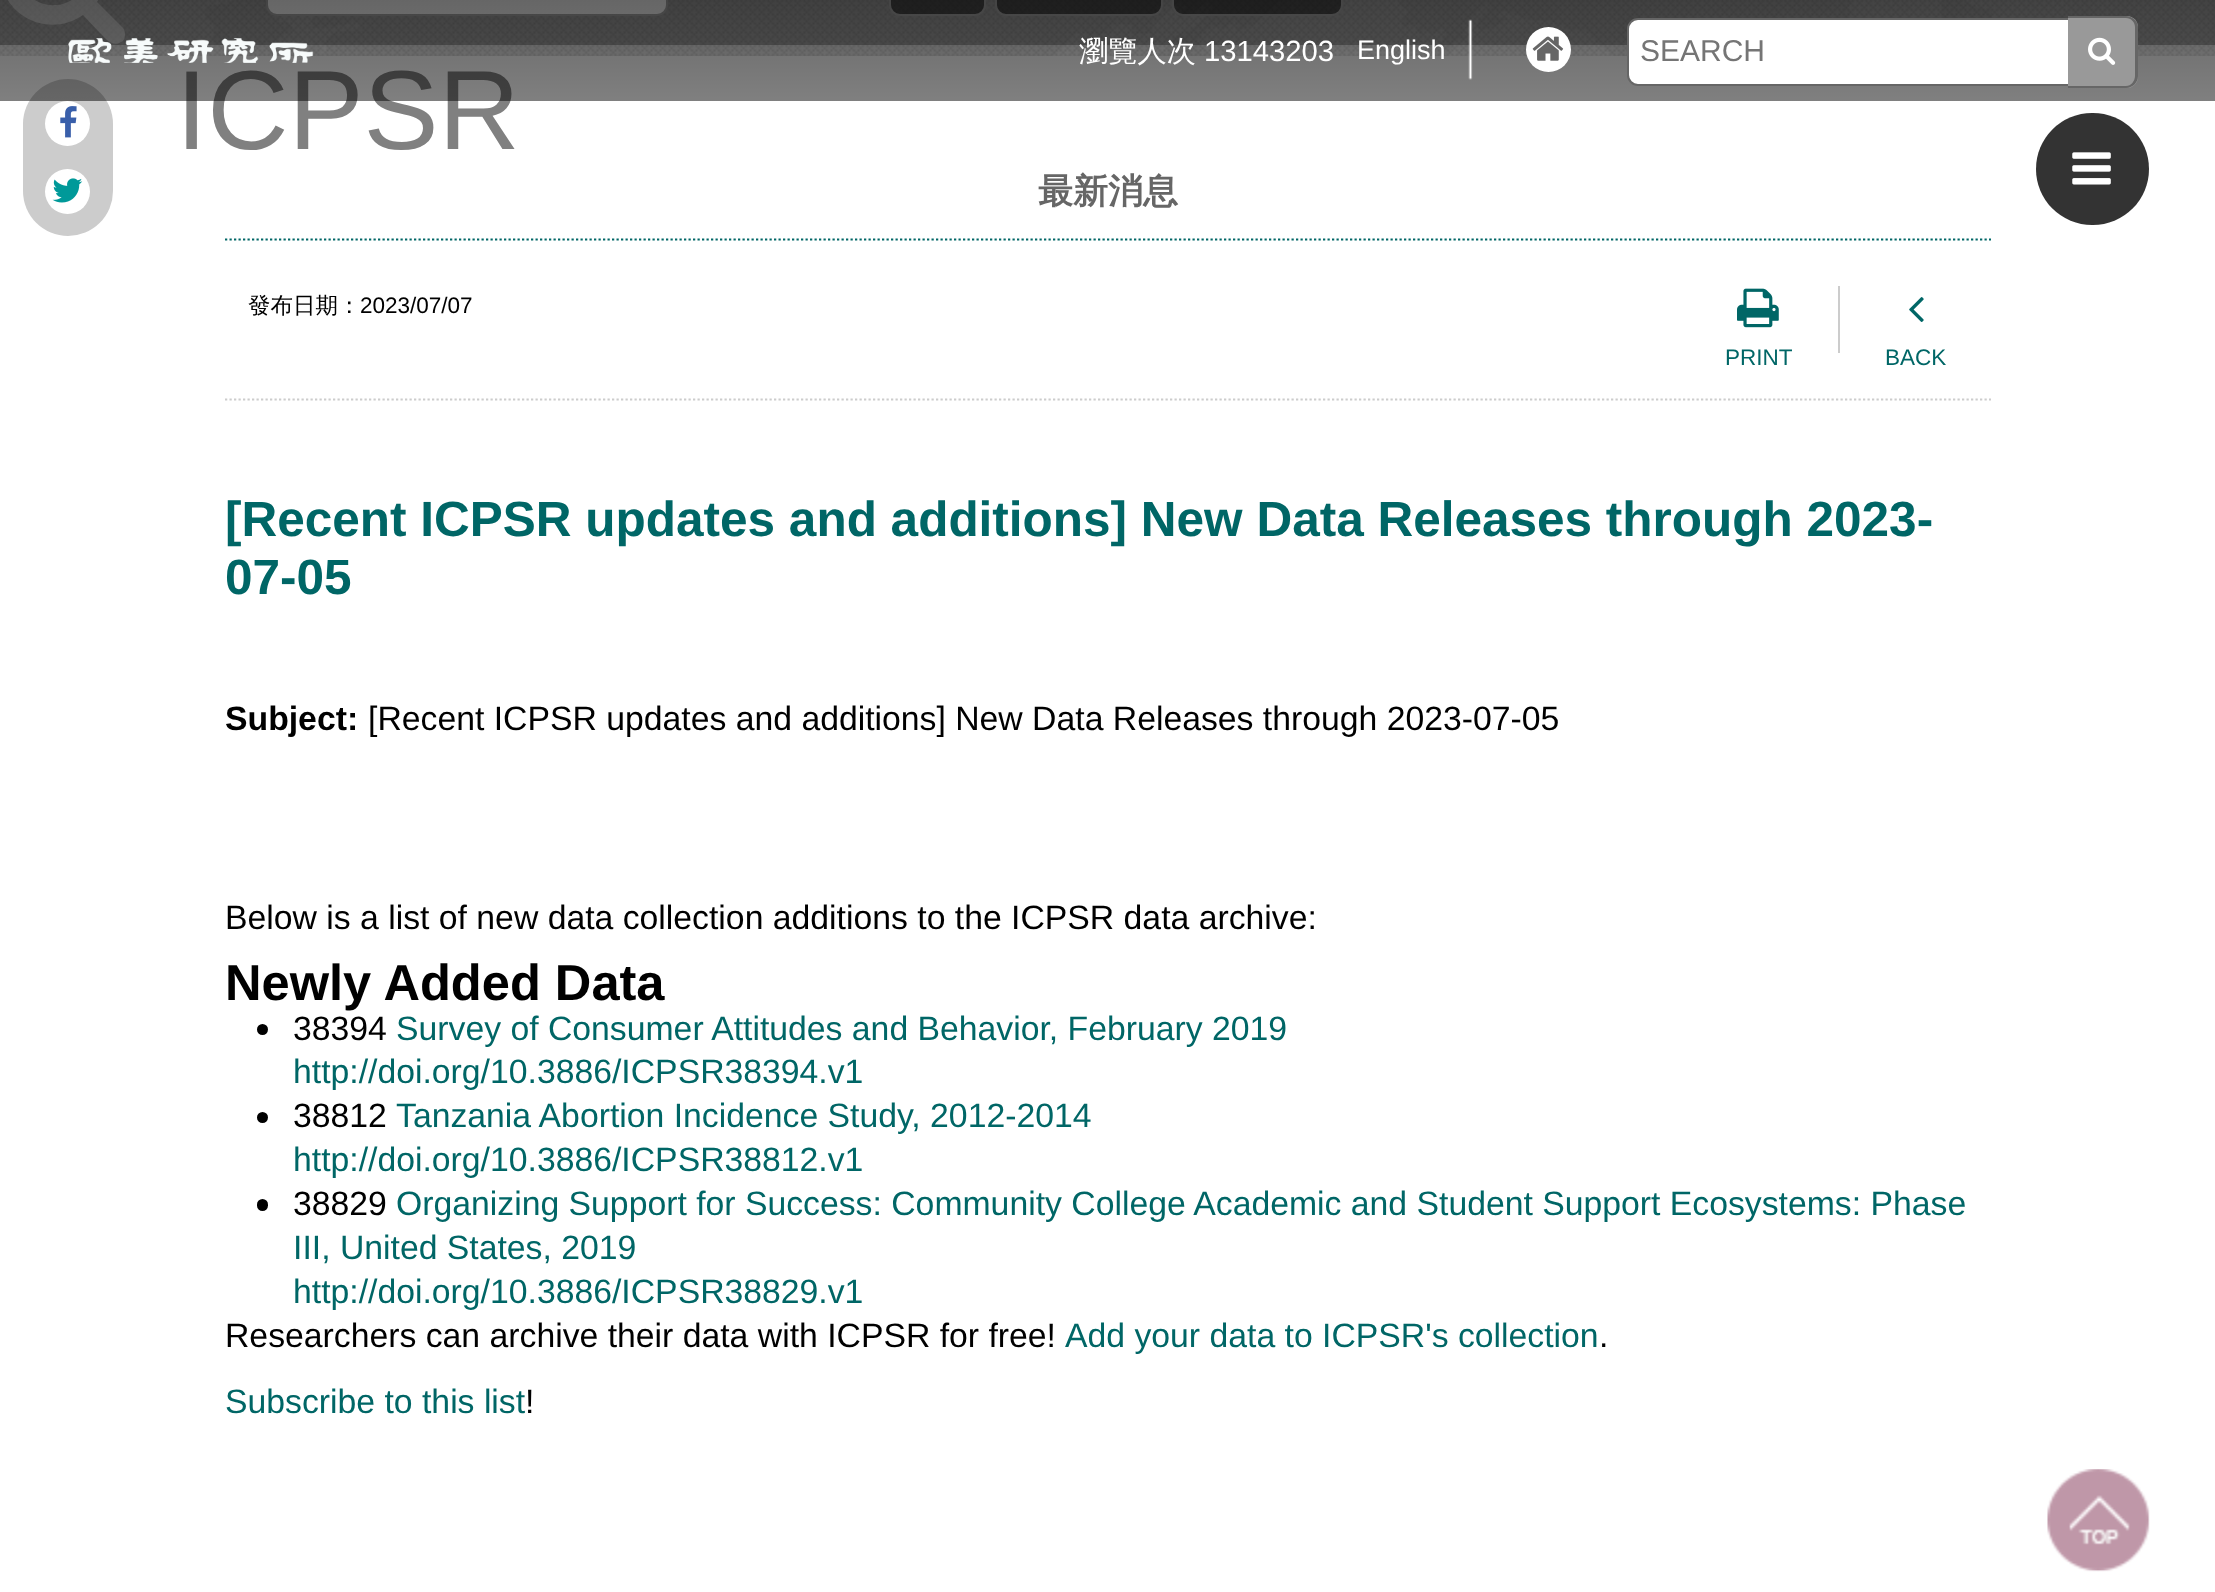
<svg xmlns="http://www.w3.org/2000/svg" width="2215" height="1592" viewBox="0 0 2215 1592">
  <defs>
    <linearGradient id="g1" gradientUnits="userSpaceOnUse" x1="1108" y1="0" x2="1108" y2="101"><stop offset="0" stop-color="#000000" stop-opacity="0.6"/><stop offset="1" stop-color="#000000" stop-opacity="0.5"/></linearGradient>
  </defs>
  <rect width="100%" height="100%" fill="#f1f1f1"/>
  <image x="133" y="0" width="1859" height="56" href="img1.png"/>
  <image x="0" y="0" width="2215" height="56" href="img2.png"/>
  <rect x="0" y="0" width="2215" height="45" fill="#000000" fill-opacity="0.3"/>
  <path d="M77-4C99-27 81-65 50-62C42-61 35-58 29-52C7-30 25 8 56 5C64 5 71 1 77-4ZM125 34C125 38 124 41 121 42C113 48 105 38 100 33L83 15C56 34 19 24 5-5C0-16-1-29 2-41C15-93 88-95 104-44C109-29 106-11 97 2L123 28C124 29 125 32 125 34Z" fill="#ffffff" fill-opacity="0.5"/>
  <rect x="267" y="-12" width="400" height="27" rx="10" fill="#ffffff" stroke="#aaaaaa" stroke-width="2"/>
  <rect x="890" y="-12" width="95" height="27" rx="10" fill="#000000" fill-opacity="0.52" stroke="#aaaaaa" stroke-width="2"/>
  <rect x="996" y="-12" width="166" height="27" rx="10" fill="#000000" fill-opacity="0.52" stroke="#aaaaaa" stroke-width="2"/>
  <rect x="1173" y="-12" width="169" height="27" rx="10" fill="#000000" fill-opacity="0.52" stroke="#aaaaaa" stroke-width="2"/>
  <rect x="0" y="56" width="2215" height="1536" fill="#ffffff"/>
  <rect x="23" y="79" width="90" height="157" rx="45" fill="#cccccc"/>
  <text x="176" y="149" font-family="Liberation Sans" font-size="112.5" fill="#808080">ICPSR</text>
  <rect x="0" y="0" width="2215" height="101" fill="url(#g1)"/>
  <image x="68" y="38" width="246" height="25" href="img3.png"/>
  <text x="1079" y="61" font-family="WenQuanYi Zen Hei" font-size="29.25" font-weight="500" fill="#ffffff">瀏覽人次</text>
  <text x="1204" y="61" font-family="Liberation Sans" font-size="29.25" fill="#ffffff">13143203</text>
  <image x="1468" y="19" width="5" height="61" href="img4.png"/>
  <text x="1357" y="59" font-family="Liberation Sans" font-size="27" fill="#ffffff">English</text>
  <circle cx="1548.5" cy="49.5" r="22.5" fill="#ffffff"/>
  <image x="1532" y="36" width="32" height="25" href="img5.png"/>
  <path d="M1638 19H2076V85H1638C1632.5 85 1628 80.5 1628 75V29C1628 23.5 1632.5 19 1638 19Z" fill="#ffffff" stroke="#666666" stroke-width="2"/>
  <text x="1640" y="61" font-family="Liberation Sans" font-size="30" fill="#757575">SEARCH</text>
  <path d="M2068 16H2127C2133 16 2138 21 2138 27V77C2138 83 2133 88 2127 88H2068Z" fill="#999999"/>
  <path d="M2068 16H2126C2132 16 2138 21 2138 27V76C2138 83 2132 88 2126 88H2068ZM2068 18H2126C2131 18 2135 22 2135 27V76C2135 81 2131 86 2126 86H2068Z" fill="#666666" fill-rule="evenodd"/>
  <image x="2088" y="37" width="28" height="28" href="img6.png"/>
  <circle cx="67.5" cy="123.5" r="22.5" fill="#ffffff"/>
  <image x="60" y="106" width="17" height="32" href="img7.png"/>
  <circle cx="67.5" cy="191.5" r="22.5" fill="#ffffff"/>
  <image x="52" y="178" width="31" height="25" href="img8.png"/>
  <path d="M225 239.5H1991" fill="none" stroke="#006666" stroke-width="2.2" stroke-dasharray="2.25 2.25"/>
  <text x="1038" y="203" font-family="WenQuanYi Zen Hei" font-size="35" font-weight="bold" fill="#666666">最新消息</text>
  <path d="M225 399.5H1991" fill="none" stroke="#cccccc" stroke-width="2.2" stroke-dasharray="2.25 2.25"/>
  <text x="248" y="313" font-family="WenQuanYi Zen Hei" font-size="22.5" font-weight="500" fill="#000000">發布日期：</text>
  <text x="360" y="313" font-family="Liberation Sans" font-size="22.5" fill="#000000">2023/07/07</text>
  <image x="1737" y="288" width="42" height="40" href="img9.png"/>
  <text x="1725" y="365" font-family="Liberation Sans" font-size="22.5" fill="#006666">PRINT</text>
  <rect x="1838" y="286" width="2" height="67" fill="#cccccc"/>
  <image x="1909" y="297" width="15" height="25" href="img10.png"/>
  <text x="1885" y="365" font-family="Liberation Sans" font-size="22.5" fill="#006666">BACK</text>
  <text x="225" y="536" font-family="Liberation Sans" font-size="49.5" font-weight="bold" fill="#006666">[Recent ICPSR updates and additions] New Data Releases through 2023-</text>
  <text x="225" y="594" font-family="Liberation Sans" font-size="49.5" font-weight="bold" fill="#006666">07-05</text>
  <text x="225" y="730" font-family="Liberation Sans" font-size="33.75" font-weight="bold" fill="#000000">Subject:</text>
  <text x="368" y="730" font-family="Liberation Sans" font-size="33.75" fill="#000000">[Recent ICPSR updates and additions] New Data Releases through 2023-07-05</text>
  <text x="225" y="929" font-family="Liberation Sans" font-size="33.75" fill="#000000">Below is a list of new data collection additions to the ICPSR data archive:</text>
  <text x="225" y="1000" font-family="Liberation Sans" font-size="50.6" font-weight="bold" fill="#000000">Newly Added Data</text>
  <circle cx="262.5" cy="1029.5" r="5.5" fill="#000000"/>
  <text x="293" y="1040" font-family="Liberation Sans" font-size="33.75" fill="#000000">38394</text>
  <text x="396" y="1040" font-family="Liberation Sans" font-size="33.75" fill="#006666">Survey of Consumer Attitudes and Behavior, February 2019</text>
  <text x="293" y="1083" font-family="Liberation Sans" font-size="33.75" fill="#006666">http://doi.org/10.3886/ICPSR38394.v1</text>
  <circle cx="262.5" cy="1117.5" r="5.5" fill="#000000"/>
  <text x="293" y="1127" font-family="Liberation Sans" font-size="33.75" fill="#000000">38812</text>
  <text x="396" y="1127" font-family="Liberation Sans" font-size="33.75" fill="#006666">Tanzania Abortion Incidence Study, 2012-2014</text>
  <text x="293" y="1171" font-family="Liberation Sans" font-size="33.75" fill="#006666">http://doi.org/10.3886/ICPSR38812.v1</text>
  <rect x="257" y="1199" width="11" height="12" rx="5.5" fill="#000000"/>
  <text x="293" y="1215" font-family="Liberation Sans" font-size="33.75" fill="#000000">38829</text>
  <text x="396" y="1215" font-family="Liberation Sans" font-size="33.75" fill="#006666">Organizing Support for Success: Community College Academic and Student Support Ecosystems: Phase</text>
  <text x="293" y="1259" font-family="Liberation Sans" font-size="33.75" fill="#006666">III, United States, 2019</text>
  <text x="293" y="1303" font-family="Liberation Sans" font-size="33.75" fill="#006666">http://doi.org/10.3886/ICPSR38829.v1</text>
  <text x="225" y="1347" font-family="Liberation Sans" font-size="33.75" fill="#000000">Researchers can archive their data with ICPSR for free!</text>
  <text x="1065" y="1347" font-family="Liberation Sans" font-size="33.75" fill="#006666">Add your data to ICPSR's collection</text>
  <text x="1599" y="1347" font-family="Liberation Sans" font-size="33.75" fill="#000000">.</text>
  <text x="225" y="1413" font-family="Liberation Sans" font-size="33.75" fill="#006666">Subscribe to this list</text>
  <text x="525" y="1413" font-family="Liberation Sans" font-size="33.75" fill="#000000">!</text>
  <rect x="2036" y="113" width="113" height="112" rx="56" fill="#333333"/>
  <image x="2072" y="152" width="39" height="33" href="img11.png"/>
  <image x="2047" y="1469" width="103" height="103" href="img12.png"/>
</svg>
